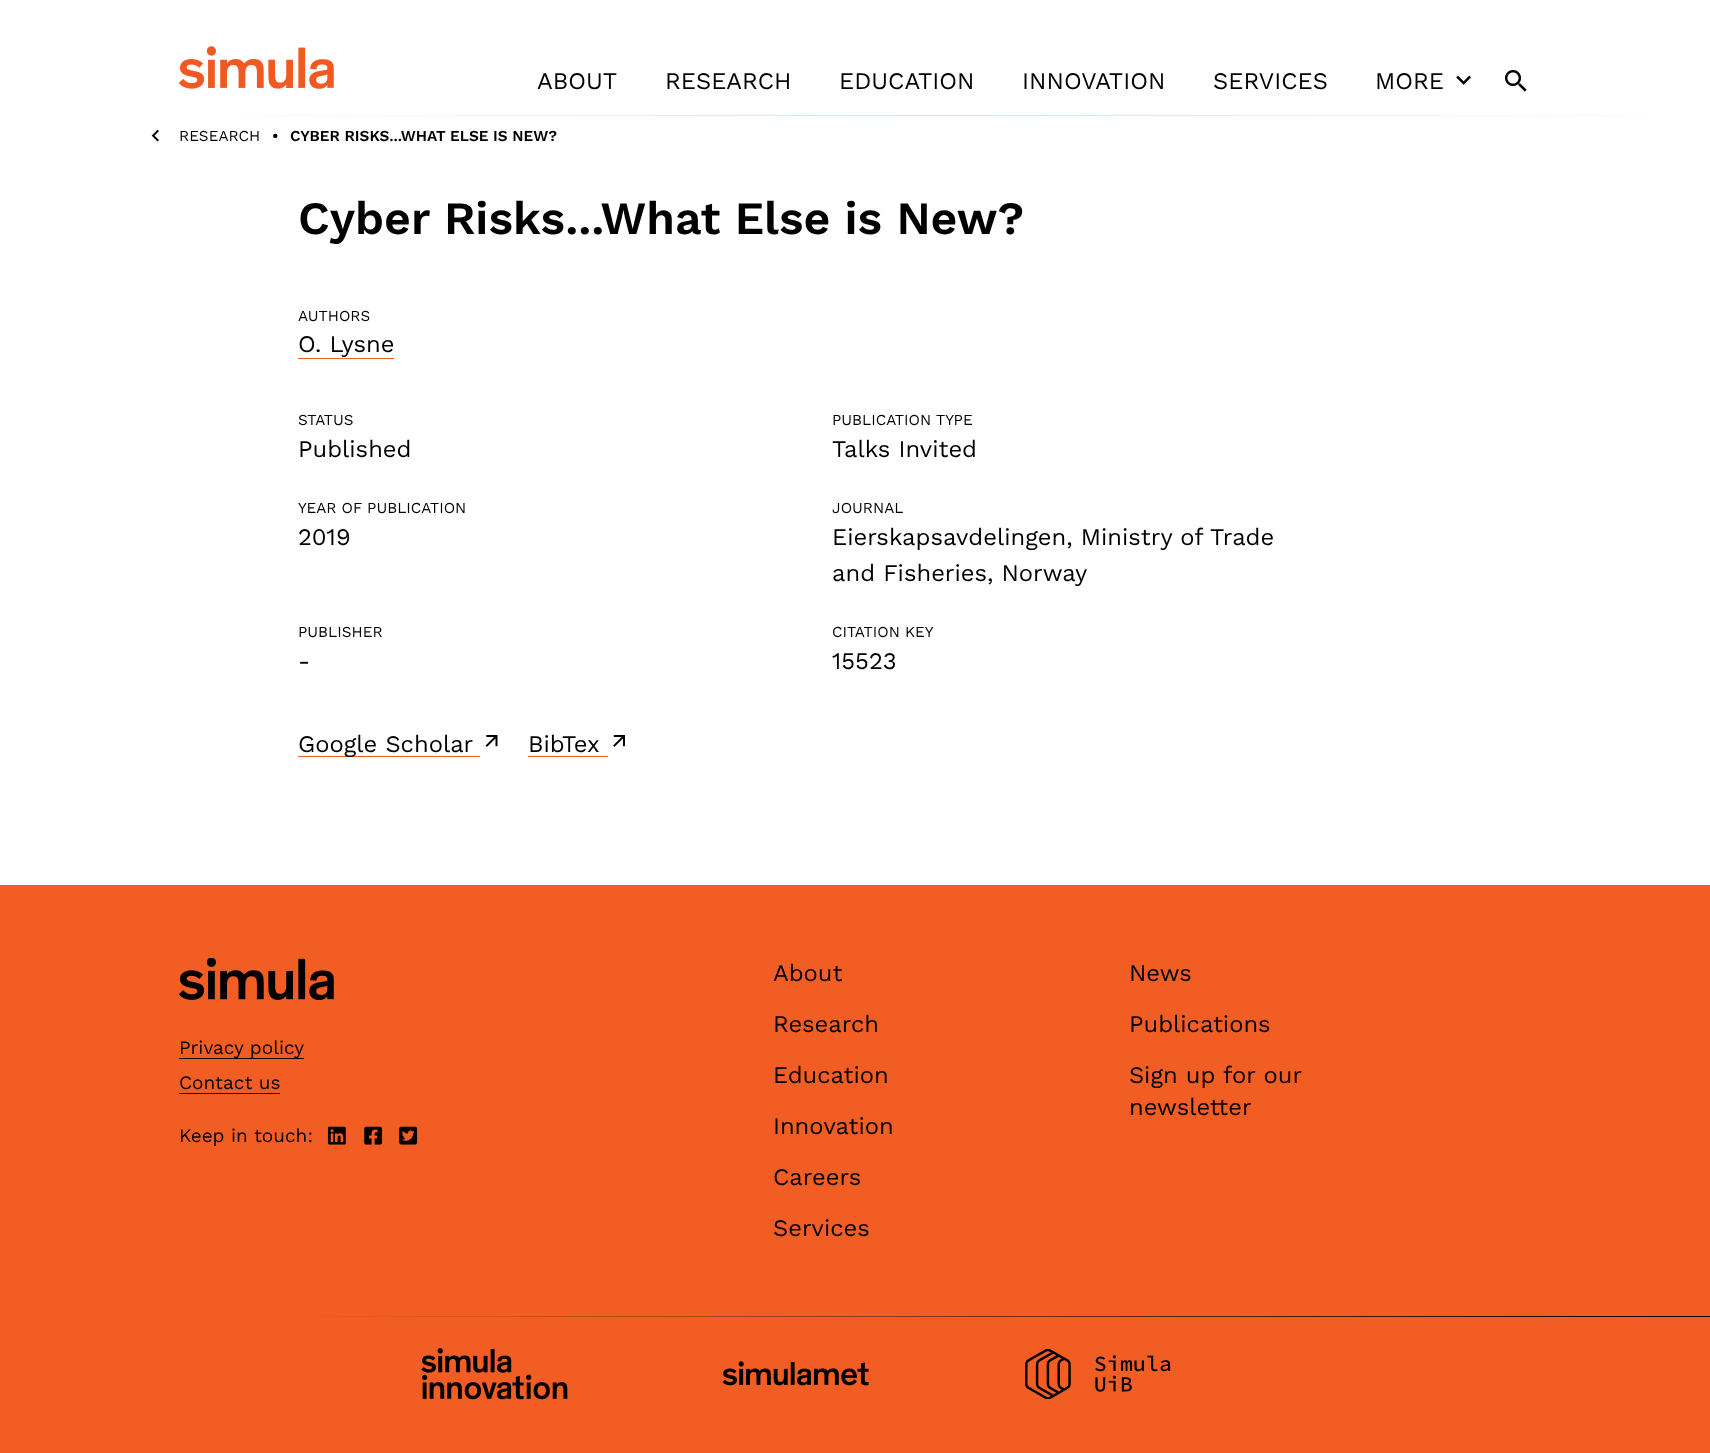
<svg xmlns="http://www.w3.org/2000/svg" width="1710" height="1453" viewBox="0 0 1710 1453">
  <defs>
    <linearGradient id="g1" gradientUnits="userSpaceOnUse" x1="179" y1="116" x2="1710" y2="116"><stop offset="0" stop-color="#ffffff"/><stop offset="0.5" stop-color="#fbd5c8"/><stop offset="1" stop-color="#ffffff"/></linearGradient>
    <linearGradient id="g2" gradientUnits="userSpaceOnUse" x1="298" y1="1317" x2="1710" y2="1317"><stop offset="0" stop-color="#f15d23"/><stop offset="1" stop-color="#000000"/></linearGradient>
  </defs>
  <rect width="100%" height="100%" fill="#ffffff"/>
  <image x="179" y="46" width="155" height="43" href="img1.png"/>
  <text x="537" y="89" font-family="Work Sans" font-size="23.75" fill="#000000">ABOUT</text>
  <text x="665" y="89" font-family="Work Sans" font-size="23.75" fill="#000000">RESEARCH</text>
  <text x="839" y="89" font-family="Work Sans" font-size="23.75" fill="#000000">EDUCATION</text>
  <text x="1022" y="89" font-family="Work Sans" font-size="23.75" fill="#000000">INNOVATION</text>
  <text x="1213" y="89" font-family="Work Sans" font-size="23.75" fill="#000000">SERVICES</text>
  <text x="1375" y="89" font-family="Work Sans" font-size="23.75" fill="#000000">MORE</text>
  <image x="1456" y="75" width="15" height="10" href="img2.png"/>
  <image x="1505" y="70" width="22" height="22" href="img3.png"/>
  <rect x="214" y="115" width="1461" height="1" fill="url(#g1)"/>
  <image x="151" y="129" width="8" height="13" href="img4.png"/>
  <text x="179" y="141" font-family="Work Sans" font-size="15.25" fill="#000000">RESEARCH</text>
  <text x="272" y="141" font-family="Work Sans" font-size="15.25" font-weight="600" fill="#000000">•</text>
  <text x="290" y="141" font-family="Work Sans" font-size="15.25" font-weight="600" fill="#000000">CYBER RISKS...WHAT ELSE IS NEW?</text>
  <text x="298" y="234" font-family="Work Sans" font-size="46.4" font-weight="600" fill="#000000">Cyber Risks...What Else is New?</text>
  <text x="298" y="321" font-family="Work Sans" font-size="15.25" fill="#000000">AUTHORS</text>
  <text x="298" y="352" font-family="Work Sans" font-size="23.75" fill="#000000">O. Lysne</text>
  <rect x="298" y="358" width="96" height="1" fill="#f15d23"/>
  <text x="298" y="425" font-family="Work Sans" font-size="15.25" fill="#000000">STATUS</text>
  <text x="298" y="457" font-family="Work Sans" font-size="23.75" fill="#000000">Published</text>
  <text x="832" y="425" font-family="Work Sans" font-size="15.25" fill="#000000">PUBLICATION TYPE</text>
  <text x="832" y="457" font-family="Work Sans" font-size="23.75" fill="#000000">Talks Invited</text>
  <text x="298" y="513" font-family="Work Sans" font-size="15.25" fill="#000000">YEAR OF PUBLICATION</text>
  <text x="298" y="545" font-family="Work Sans" font-size="23.75" fill="#000000">2019</text>
  <text x="832" y="513" font-family="Work Sans" font-size="15.25" fill="#000000">JOURNAL</text>
  <text x="832" y="545" font-family="Work Sans" font-size="23.75" fill="#000000">Eierskapsavdelingen, Ministry of Trade</text>
  <text x="832" y="581" font-family="Work Sans" font-size="23.75" fill="#000000">and Fisheries, Norway</text>
  <text x="298" y="637" font-family="Work Sans" font-size="15.25" fill="#000000">PUBLISHER</text>
  <text x="298" y="669" font-family="Work Sans" font-size="23.75" fill="#000000">-</text>
  <text x="832" y="637" font-family="Work Sans" font-size="15.25" fill="#000000">CITATION KEY</text>
  <text x="832" y="669" font-family="Work Sans" font-size="23.75" fill="#000000">15523</text>
  <rect x="298" y="756" width="182" height="1" fill="#f15d23"/>
  <text x="298" y="752" font-family="Work Sans" font-size="23.75" fill="#000000">Google Scholar</text>
  <image x="485" y="735" width="13" height="12" href="img5.png"/>
  <text x="528" y="752" font-family="Work Sans" font-size="23.75" fill="#000000">BibTex</text>
  <rect x="528" y="756" width="80" height="1" fill="#f15d23"/>
  <image x="613" y="735" width="12" height="12" href="img6.png"/>
  <rect x="0" y="885" width="1710" height="568" fill="#f15d23"/>
  <image x="179" y="958" width="155" height="42" href="img7.png"/>
  <rect x="179" y="1058" width="125" height="1" fill="#000000"/>
  <text x="179" y="1054" font-family="Work Sans" font-size="19" fill="#000000">Privacy policy</text>
  <text x="179" y="1089" font-family="Work Sans" font-size="19" fill="#000000">Contact us</text>
  <rect x="179" y="1093" width="101" height="1" fill="#000000"/>
  <text x="179" y="1142" font-family="Work Sans" font-size="19" fill="#000000">Keep in touch:</text>
  <image x="327" y="1126" width="19" height="19" href="img8.png"/>
  <image x="364" y="1126" width="19" height="19" href="img9.png"/>
  <image x="399" y="1126" width="19" height="19" href="img10.png"/>
  <text x="773" y="981" font-family="Work Sans" font-size="23.75" fill="#000000">About</text>
  <text x="773" y="1032" font-family="Work Sans" font-size="23.75" fill="#000000">Research</text>
  <text x="773" y="1083" font-family="Work Sans" font-size="23.75" fill="#000000">Education</text>
  <text x="773" y="1134" font-family="Work Sans" font-size="23.75" fill="#000000">Innovation</text>
  <text x="773" y="1185" font-family="Work Sans" font-size="23.75" fill="#000000">Careers</text>
  <text x="773" y="1236" font-family="Work Sans" font-size="23.75" fill="#000000">Services</text>
  <text x="1129" y="981" font-family="Work Sans" font-size="23.75" fill="#000000">News</text>
  <text x="1129" y="1032" font-family="Work Sans" font-size="23.75" fill="#000000">Publications</text>
  <text x="1129" y="1083" font-family="Work Sans" font-size="23.75" fill="#000000">Sign up for our</text>
  <text x="1129" y="1115" font-family="Work Sans" font-size="23.75" fill="#000000">newsletter</text>
  <rect x="313" y="1316" width="1397" height="1" fill="url(#g2)"/>
  <image x="421" y="1348" width="147" height="52" href="img11.png"/>
  <image x="723" y="1361" width="146" height="25" href="img12.png"/>
  <image x="1025" y="1349" width="146" height="50" href="img13.png"/>
</svg>
